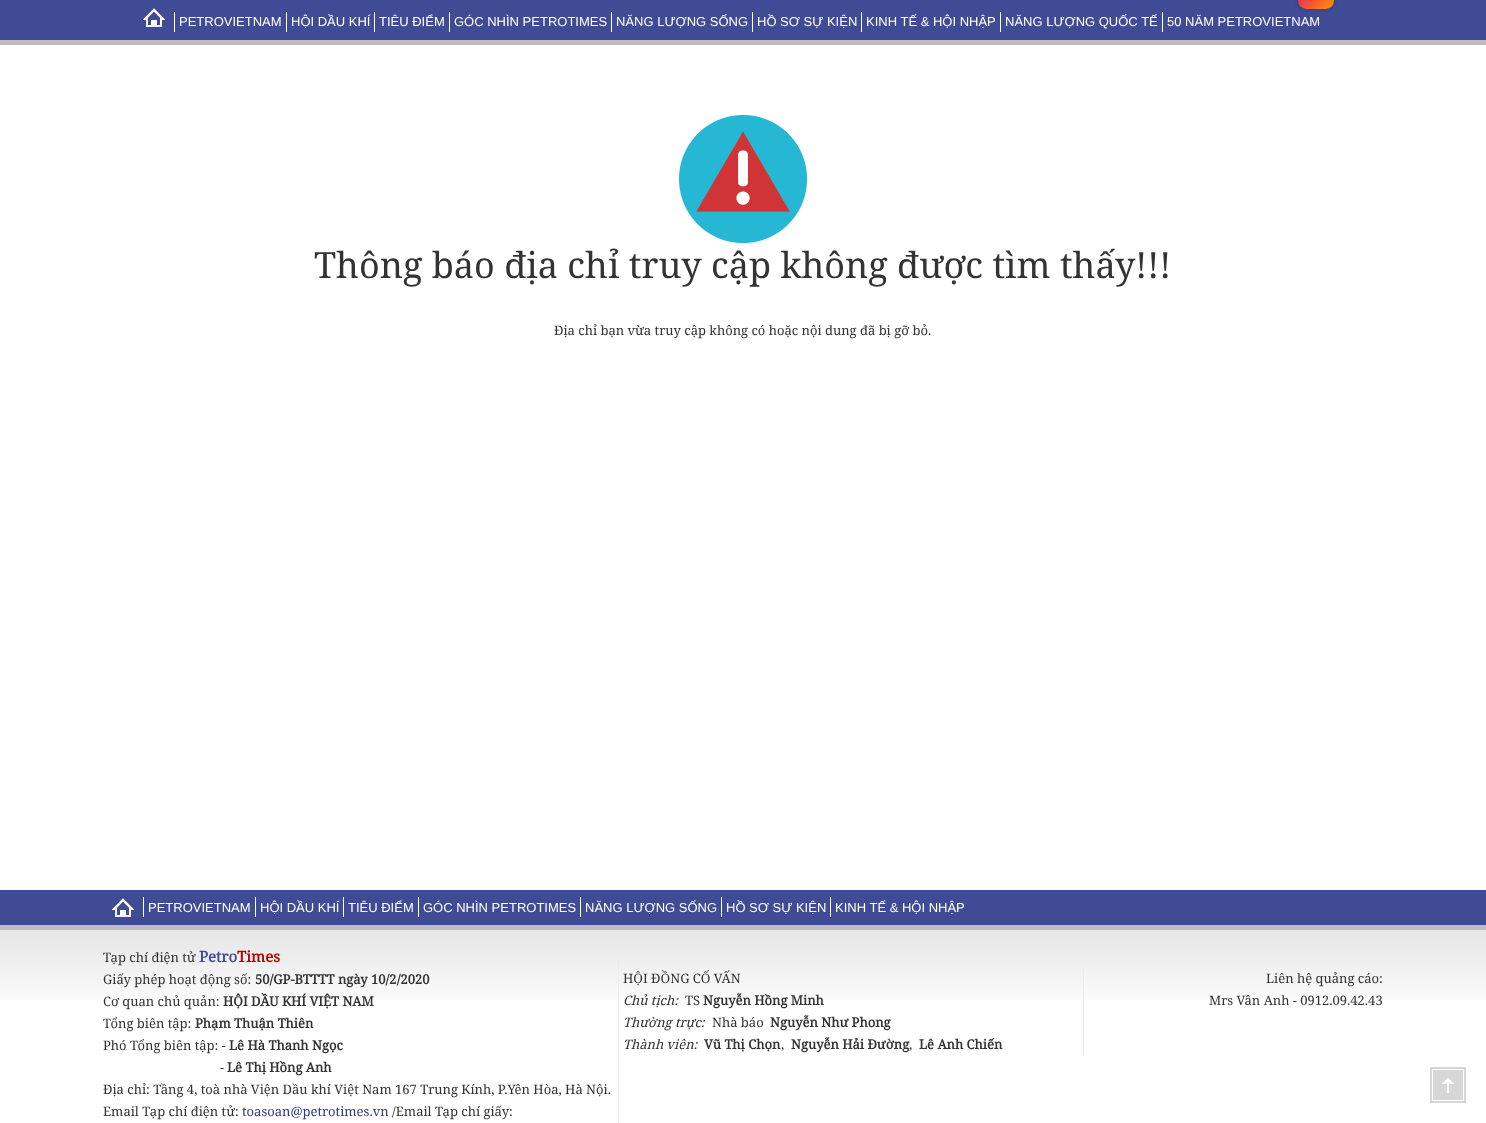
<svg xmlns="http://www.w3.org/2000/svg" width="1486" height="1123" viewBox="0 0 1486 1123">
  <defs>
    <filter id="blur1" x="-50%" y="-200%" width="200%" height="500%"><feGaussianBlur stdDeviation="3"/></filter>
    <linearGradient id="g1" gradientUnits="userSpaceOnUse" x1="1303" y1="-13" x2="1329" y2="14"><stop offset="0" stop-color="#e91e63"/><stop offset="1" stop-color="#ff9800"/></linearGradient>
  </defs>
  <rect width="100%" height="100%" fill="#ffffff"/>
  <rect x="0" y="0" width="1486" height="40" fill="#3f4b95"/>
  <rect x="0" y="40" width="1486" height="5" fill="#bfbfbf"/>
  <image x="143" y="8" width="22" height="19" href="img1.png"/>
  <rect x="174" y="12" width="1" height="20" fill="#ffffff"/>
  <text x="179" y="26" font-family="Liberation Sans" font-size="13" fill="#ffffff">PETROVIETNAM</text>
  <rect x="286" y="12" width="1" height="20" fill="#ffffff"/>
  <text x="291" y="26" font-family="Liberation Sans" font-size="13" fill="#ffffff">HỘI DẦU KHÍ</text>
  <rect x="374" y="12" width="1" height="20" fill="#ffffff"/>
  <text x="379" y="26" font-family="Liberation Sans" font-size="13" fill="#ffffff">TIÊU ĐIỂM</text>
  <rect x="449" y="12" width="1" height="20" fill="#ffffff"/>
  <text x="454" y="26" font-family="Liberation Sans" font-size="13" fill="#ffffff">GÓC NHÌN PETROTIMES</text>
  <rect x="611" y="12" width="1" height="20" fill="#ffffff"/>
  <text x="616" y="26" font-family="Liberation Sans" font-size="13" fill="#ffffff">NĂNG LƯỢNG SỐNG</text>
  <rect x="752" y="12" width="1" height="20" fill="#ffffff"/>
  <text x="757" y="26" font-family="Liberation Sans" font-size="13" fill="#ffffff">HỒ SƠ SỰ KIỆN</text>
  <rect x="861" y="12" width="1" height="20" fill="#ffffff"/>
  <text x="866" y="26" font-family="Liberation Sans" font-size="13" fill="#ffffff">KINH TẾ &amp; HỘI NHẬP</text>
  <rect x="1000" y="12" width="1" height="20" fill="#ffffff"/>
  <text x="1005" y="26" font-family="Liberation Sans" font-size="13" fill="#ffffff">NĂNG LƯỢNG QUỐC TẾ</text>
  <rect x="1162" y="12" width="1" height="20" fill="#ffffff"/>
  <rect x="1298" y="-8" width="36" height="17" rx="8.5" fill="#000000" fill-opacity="0.2" filter="url(#blur1)"/>
  <rect x="1298" y="-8" width="36" height="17" rx="8.5" fill="url(#g1)"/>
  <text x="1167" y="26" font-family="Liberation Sans" font-size="13" fill="#ffffff">50 NĂM PETROVIETNAM</text>
  <image x="679" y="115" width="128" height="128" href="img2.png"/>
  <text x="314" y="278" font-family="Noto Serif" font-size="36" fill="#333333">Thông báo địa chỉ truy cập không được tìm thấy!!!</text>
  <text x="554" y="335" font-family="Noto Serif" font-size="13" fill="#333333">Địa chỉ bạn vừa truy cập không có hoặc nội dung đã bị gỡ bỏ.</text>
  <rect x="0" y="890" width="1486" height="35" fill="#3f4b95"/>
  <rect x="0" y="925" width="1486" height="5" fill="#bfbfbf"/>
  <image x="112" y="898" width="22" height="19" href="img3.png"/>
  <rect x="143" y="897" width="1" height="20" fill="#ffffff"/>
  <text x="148" y="912" font-family="Liberation Sans" font-size="13" fill="#ffffff">PETROVIETNAM</text>
  <rect x="255" y="897" width="1" height="20" fill="#ffffff"/>
  <text x="260" y="912" font-family="Liberation Sans" font-size="13" fill="#ffffff">HỘI DẦU KHÍ</text>
  <rect x="343" y="897" width="1" height="20" fill="#ffffff"/>
  <text x="348" y="912" font-family="Liberation Sans" font-size="13" fill="#ffffff">TIÊU ĐIỂM</text>
  <rect x="418" y="897" width="1" height="20" fill="#ffffff"/>
  <text x="423" y="912" font-family="Liberation Sans" font-size="13" fill="#ffffff">GÓC NHÌN PETROTIMES</text>
  <rect x="580" y="897" width="1" height="20" fill="#ffffff"/>
  <text x="585" y="912" font-family="Liberation Sans" font-size="13" fill="#ffffff">NĂNG LƯỢNG SỐNG</text>
  <rect x="721" y="897" width="1" height="20" fill="#ffffff"/>
  <text x="726" y="912" font-family="Liberation Sans" font-size="13" fill="#ffffff">HỒ SƠ SỰ KIỆN</text>
  <rect x="830" y="897" width="1" height="20" fill="#ffffff"/>
  <text x="835" y="912" font-family="Liberation Sans" font-size="13" fill="#ffffff">KINH TẾ &amp; HỘI NHẬP</text>
  <image x="0" y="930" width="1486" height="70" href="img4.png"/>
  <rect x="618" y="957" width="1" height="166" fill="#ebebeb"/>
  <text x="103" y="962" font-family="Noto Serif" font-size="13" fill="#333333">Tạp chí điện tử</text>
  <text x="199" y="962" font-family="Noto Serif" font-size="15" font-weight="bold" fill="#3f4b95">Petro</text>
  <text x="237" y="962" font-family="Noto Serif" font-size="15" font-weight="bold" fill="#b80000">Times</text>
  <text x="103" y="984" font-family="Noto Serif" font-size="13" fill="#333333">Giấy phép hoạt động số:</text>
  <text x="255" y="984" font-family="Noto Serif" font-size="13" font-weight="bold" fill="#333333">50/GP-BTTTT ngày 10/2/2020</text>
  <text x="103" y="1006" font-family="Noto Serif" font-size="13" fill="#333333">Cơ quan chủ quản:</text>
  <text x="223" y="1006" font-family="Noto Serif" font-size="13" font-weight="bold" fill="#333333">HỘI DẦU KHÍ VIỆT NAM</text>
  <text x="103" y="1028" font-family="Noto Serif" font-size="13" fill="#333333">Tổng biên tập:</text>
  <text x="195" y="1028" font-family="Noto Serif" font-size="13" font-weight="bold" fill="#333333">Phạm Thuận Thiên</text>
  <text x="103" y="1050" font-family="Noto Serif" font-size="13" fill="#333333">Phó Tổng biên tập: -</text>
  <text x="229" y="1050" font-family="Noto Serif" font-size="13" font-weight="bold" fill="#333333">Lê Hà Thanh Ngọc</text>
  <text x="220" y="1072" font-family="Noto Serif" font-size="13" fill="#333333">-</text>
  <text x="227" y="1072" font-family="Noto Serif" font-size="13" font-weight="bold" fill="#333333">Lê Thị Hồng Anh</text>
  <text x="103" y="1094" font-family="Noto Serif" font-size="13" fill="#333333">Địa chỉ: Tầng 4, toà nhà Viện Dầu khí Việt Nam 167 Trung Kính, P.Yên Hòa, Hà Nội.</text>
  <text x="103" y="1116" font-family="Noto Serif" font-size="13" fill="#333333">Email Tạp chí điện tử:</text>
  <text x="242" y="1116" font-family="Noto Serif" font-size="13" fill="#303b83">toasoan@petrotimes.vn</text>
  <text x="392" y="1116" font-family="Noto Serif" font-size="13" fill="#333333">/Email Tạp chí giấy:</text>
  <rect x="1083" y="967" width="1" height="88" fill="#ebebeb"/>
  <text x="623" y="983" font-family="Noto Serif" font-size="13" fill="#333333">HỘI ĐỒNG CỐ VẤN</text>
  <text x="623" y="1005" font-family="Noto Serif" font-size="13" font-style="italic" fill="#333333">Chủ tịch:</text>
  <text x="685" y="1005" font-family="Noto Serif" font-size="13" fill="#333333">TS</text>
  <text x="703" y="1005" font-family="Noto Serif" font-size="13" font-weight="bold" fill="#333333">Nguyễn Hồng Minh</text>
  <text x="623" y="1027" font-family="Noto Serif" font-size="13" font-style="italic" fill="#333333">Thường trực:</text>
  <text x="712" y="1027" font-family="Noto Serif" font-size="13" fill="#333333">Nhà báo</text>
  <text x="770" y="1027" font-family="Noto Serif" font-size="13" font-weight="bold" fill="#333333">Nguyễn Như Phong</text>
  <text x="623" y="1049" font-family="Noto Serif" font-size="13" font-style="italic" fill="#333333">Thành viên:</text>
  <text x="704" y="1049" font-family="Noto Serif" font-size="13" font-weight="bold" fill="#333333">Vũ Thị Chọn</text>
  <text x="781" y="1049" font-family="Noto Serif" font-size="13" fill="#333333">,</text>
  <text x="791" y="1049" font-family="Noto Serif" font-size="13" font-weight="bold" fill="#333333">Nguyễn Hải Đường</text>
  <text x="909" y="1049" font-family="Noto Serif" font-size="13" fill="#333333">,</text>
  <text x="919" y="1049" font-family="Noto Serif" font-size="13" font-weight="bold" fill="#333333">Lê Anh Chiến</text>
  <text x="1266" y="983" font-family="Noto Serif" font-size="13" fill="#333333">Liên hệ quảng cáo:</text>
  <text x="1209" y="1005" font-family="Noto Serif" font-size="13" fill="#333333">Mrs Vân Anh - 0912.09.42.43</text>
  <image x="1430" y="1067" width="36" height="36" href="img5.png"/>
</svg>
